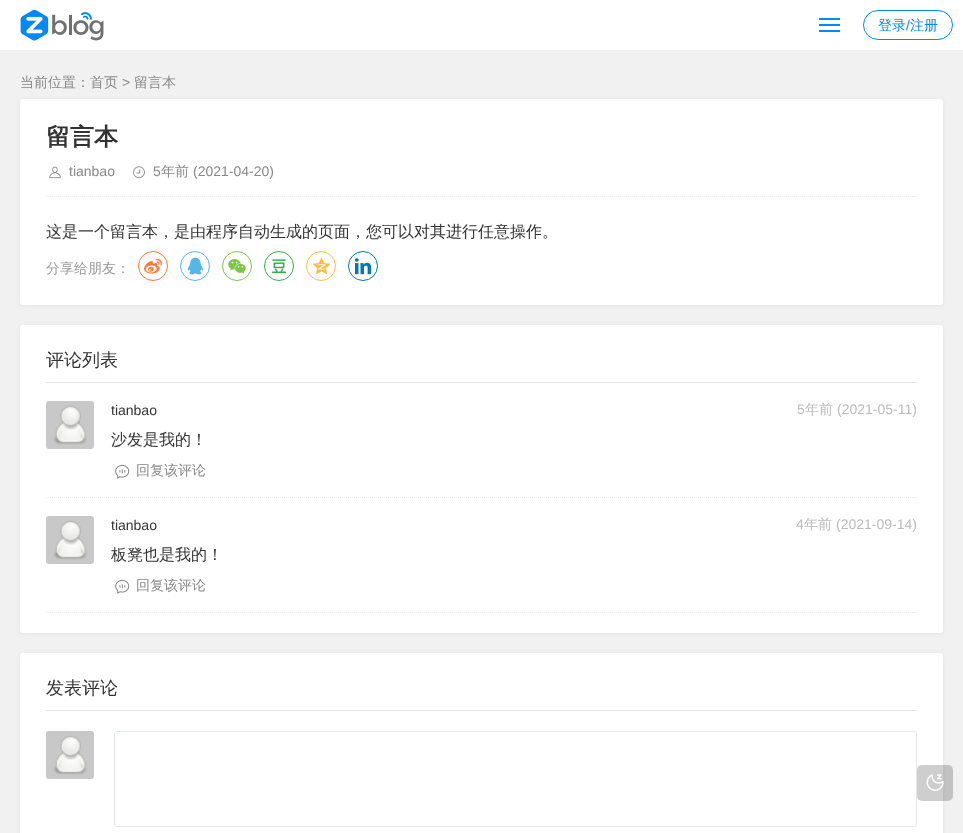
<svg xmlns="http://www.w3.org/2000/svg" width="963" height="833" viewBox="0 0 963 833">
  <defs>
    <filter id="blur1" x="-50%" y="-200%" width="200%" height="500%"><feGaussianBlur stdDeviation="2.5"/></filter>
  </defs>
  <rect width="100%" height="100%" fill="#f1f1f1"/>
  <rect x="0" y="0" width="963" height="50" fill="#ffffff"/>
  <rect x="0" y="50" width="963" height="1" fill="#eeeeee"/>
  <image x="20" y="9" width="84" height="32" href="img1.png"/>
  <rect x="819" y="18" width="21" height="2" fill="#0188fb"/>
  <rect x="819" y="24" width="21" height="2" fill="#0188fb"/>
  <rect x="819" y="30" width="21" height="2" fill="#0188fb"/>
  <rect x="863.5" y="10.5" width="89" height="29" rx="14.5" fill="none" stroke="#0188fb"/>
  <text x="878" y="30" font-family="WenQuanYi Zen Hei" font-size="14" font-weight="500" fill="#0188fb">登录</text>
  <text x="906" y="30" font-family="Liberation Sans" font-size="14" fill="#0188fb">/</text>
  <text x="910" y="30" font-family="WenQuanYi Zen Hei" font-size="14" font-weight="500" fill="#0188fb">注册</text>
  <text x="20" y="87" font-family="WenQuanYi Zen Hei" font-size="14" font-weight="500" fill="#888888">当前位置：首页</text>
  <text x="122" y="87" font-family="Liberation Sans" font-size="14" fill="#888888">&gt;</text>
  <text x="134" y="87" font-family="WenQuanYi Zen Hei" font-size="14" font-weight="500" fill="#888888">留言本</text>
  <rect x="20" y="100" width="923" height="206" rx="3" fill="#000000" fill-opacity="0.05" filter="url(#blur1)"/>
  <rect x="20" y="99" width="923" height="206" rx="3" fill="#ffffff"/>
  <text x="46" y="145" font-family="WenQuanYi Zen Hei" font-size="24" font-weight="bold" fill="#333333">留言本</text>
  <image x="49" y="166" width="12" height="13" href="img2.png"/>
  <text x="69" y="176" font-family="Liberation Sans" font-size="14" fill="#888888">tianbao</text>
  <image x="133" y="166" width="12" height="13" href="img3.png"/>
  <text x="153" y="176" font-family="Liberation Sans" font-size="14" fill="#888888">5</text>
  <text x="161" y="176" font-family="WenQuanYi Zen Hei" font-size="14" font-weight="500" fill="#888888">年前</text>
  <text x="193" y="176" font-family="Liberation Sans" font-size="14" fill="#888888">(2021-04-20)</text>
  <path d="M46 196.5H917" fill="none" stroke="#e4e8eb" stroke-dasharray="1 1"/>
  <text x="46" y="237" font-family="WenQuanYi Zen Hei" font-size="16" font-weight="500" fill="#333333">这是一个留言本，是由程序自动生成的页面，您可以对其进行任意操作。</text>
  <text x="46" y="273" font-family="WenQuanYi Zen Hei" font-size="14" font-weight="500" fill="#999999">分享给朋友：</text>
  <circle cx="153" cy="266" r="14.5" fill="none" stroke="#ff763b"/>
  <image x="144" y="259" width="18" height="15" href="img4.png"/>
  <circle cx="195" cy="266" r="14.5" fill="none" stroke="#56b6e7"/>
  <image x="187" y="257" width="16" height="18" href="img5.png"/>
  <circle cx="237" cy="266" r="14.5" fill="none" stroke="#7bc549"/>
  <image x="228" y="259" width="18" height="15" href="img6.png"/>
  <circle cx="279" cy="266" r="14.5" fill="none" stroke="#33b045"/>
  <image x="272" y="259" width="14" height="14" href="img7.png"/>
  <circle cx="321" cy="266" r="14.5" fill="none" stroke="#fdbe3d"/>
  <image x="312" y="257" width="19" height="18" href="img8.png"/>
  <circle cx="363" cy="266" r="14.5" fill="none" stroke="#0077b5"/>
  <image x="354" y="258" width="18" height="17" href="img9.png"/>
  <rect x="20" y="326" width="923" height="308" rx="3" fill="#000000" fill-opacity="0.05" filter="url(#blur1)"/>
  <rect x="20" y="325" width="923" height="308" rx="3" fill="#ffffff"/>
  <rect x="46" y="382" width="871" height="1" fill="#e4e8eb"/>
  <text x="46" y="366" font-family="WenQuanYi Zen Hei" font-size="18" font-weight="500" fill="#333333">评论列表</text>
  <path d="M46 497.5H917" fill="none" stroke="#e4e8eb" stroke-dasharray="1 1"/>
  <image x="46" y="401" width="48" height="48" href="img10.png"/>
  <text x="111" y="415" font-family="Liberation Sans" font-size="14" fill="#333333">tianbao</text>
  <text x="797" y="414" font-family="Liberation Sans" font-size="14" fill="#bbbbbb">5</text>
  <text x="805" y="414" font-family="WenQuanYi Zen Hei" font-size="14" font-weight="500" fill="#bbbbbb">年前</text>
  <text x="837" y="414" font-family="Liberation Sans" font-size="14" fill="#bbbbbb">(2021-05-11)</text>
  <text x="111" y="445" font-family="WenQuanYi Zen Hei" font-size="16" font-weight="500" fill="#333333">沙发是我的！</text>
  <image x="115" y="464" width="15" height="15" href="img11.png"/>
  <text x="136" y="475" font-family="WenQuanYi Zen Hei" font-size="14" font-weight="500" fill="#888888">回复该评论</text>
  <path d="M46 612.5H917" fill="none" stroke="#e4e8eb" stroke-dasharray="1 1"/>
  <image x="46" y="516" width="48" height="48" href="img10.png"/>
  <text x="111" y="530" font-family="Liberation Sans" font-size="14" fill="#333333">tianbao</text>
  <text x="796" y="529" font-family="Liberation Sans" font-size="14" fill="#bbbbbb">4</text>
  <text x="804" y="529" font-family="WenQuanYi Zen Hei" font-size="14" font-weight="500" fill="#bbbbbb">年前</text>
  <text x="836" y="529" font-family="Liberation Sans" font-size="14" fill="#bbbbbb">(2021-09-14)</text>
  <text x="111" y="560" font-family="WenQuanYi Zen Hei" font-size="16" font-weight="500" fill="#333333">板凳也是我的！</text>
  <image x="115" y="579" width="15" height="15" href="img11.png"/>
  <text x="136" y="590" font-family="WenQuanYi Zen Hei" font-size="14" font-weight="500" fill="#888888">回复该评论</text>
  <rect x="20" y="654" width="923" height="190" rx="3" fill="#000000" fill-opacity="0.05" filter="url(#blur1)"/>
  <rect x="20" y="653" width="923" height="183" rx="3" fill="#ffffff"/>
  <rect x="46" y="710" width="871" height="1" fill="#e4e8eb"/>
  <text x="46" y="694" font-family="WenQuanYi Zen Hei" font-size="18" font-weight="500" fill="#333333">发表评论</text>
  <image x="46" y="731" width="48" height="48" href="img10.png"/>
  <rect x="114.5" y="731.5" width="802" height="95" rx="2.5" fill="none" stroke="#e4e8eb"/>
  <rect x="917" y="765" width="36" height="36" rx="5" fill="#0a0a0a" fill-opacity="0.2"/>
  <image x="926" y="774" width="18" height="17" href="img12.png"/>
</svg>
